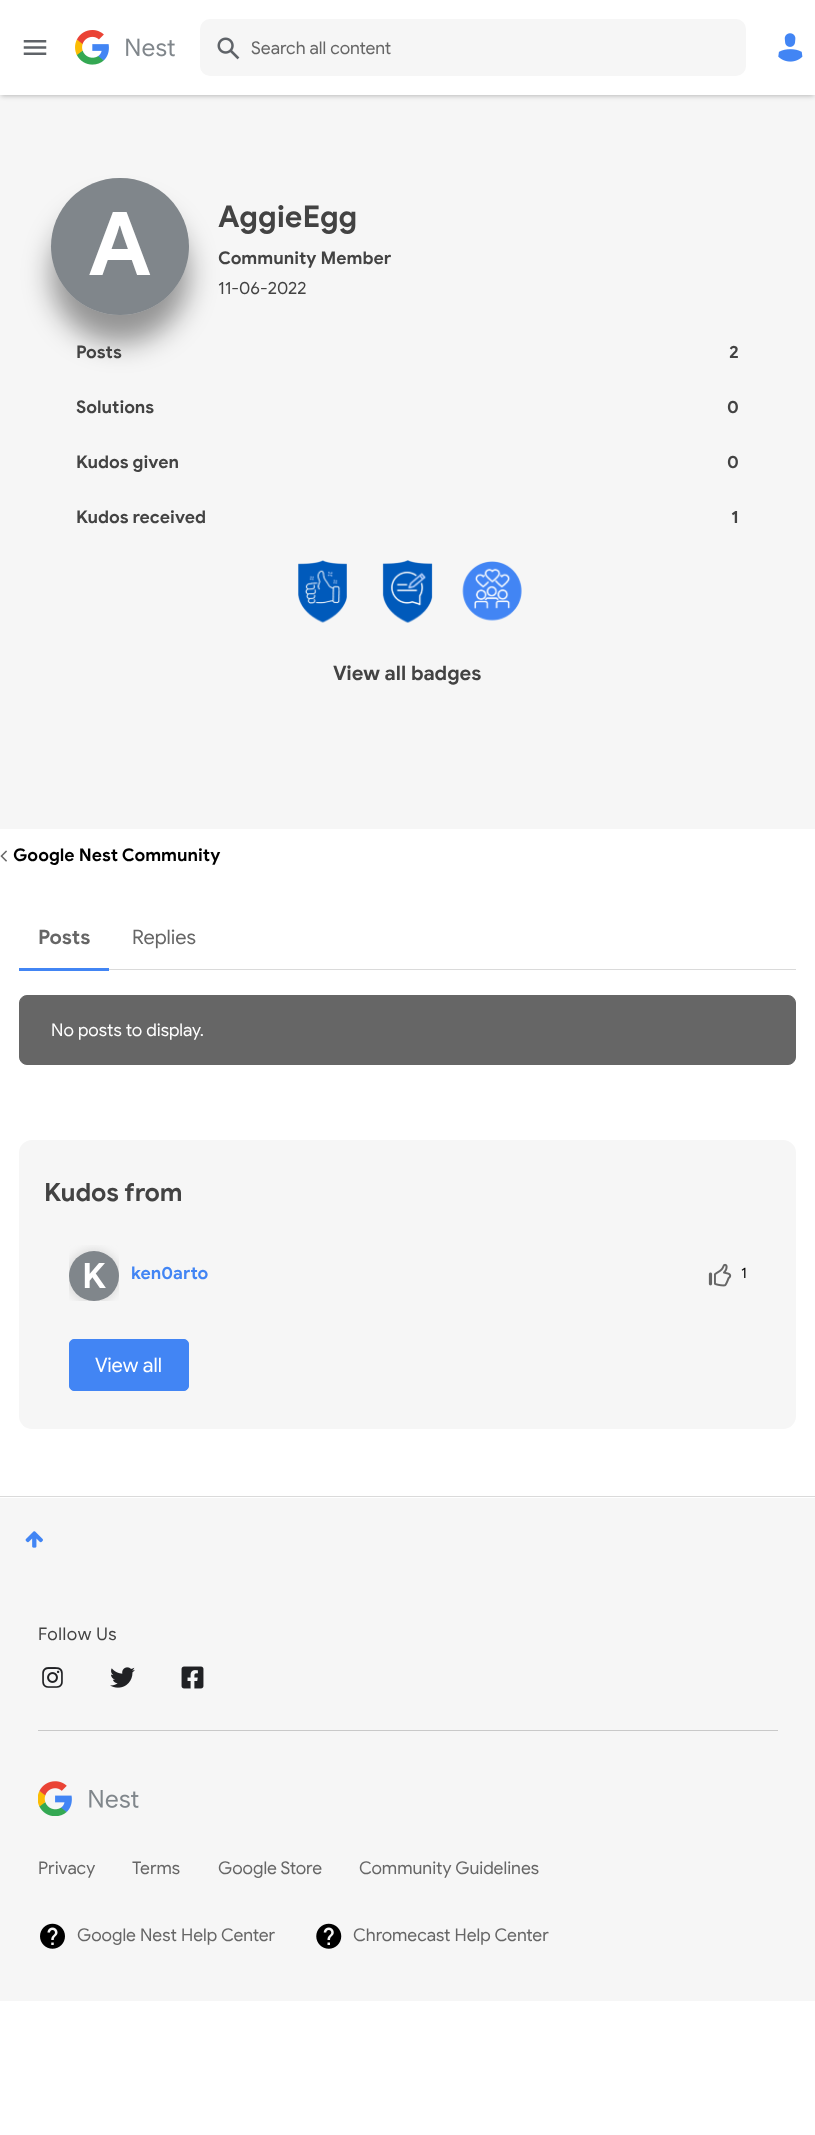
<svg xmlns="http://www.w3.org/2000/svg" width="815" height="2135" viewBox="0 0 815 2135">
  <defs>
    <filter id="blur1" x="-50%" y="-200%" width="200%" height="500%"><feGaussianBlur stdDeviation="2.5"/></filter>
    <filter id="blur2" x="-50%" y="-200%" width="200%" height="500%"><feGaussianBlur stdDeviation="14"/></filter>
    <clipPath id="clip1"><rect x="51" y="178" width="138" height="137" rx="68.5"/></clipPath>
    <filter id="blur3" x="-50%" y="-200%" width="200%" height="500%"><feGaussianBlur stdDeviation="4.5"/></filter>
    <clipPath id="clip2"><rect x="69" y="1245" width="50" height="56"/></clipPath>
  </defs>
  <rect width="100%" height="100%" fill="#ffffff"/>
  <rect x="0" y="95" width="815" height="734" fill="#f6f6f6"/>
  <rect x="1" y="4" width="813" height="92" fill="#000000" fill-opacity="0.25" filter="url(#blur1)"/>
  <rect x="0" y="0" width="815" height="95" fill="#ffffff"/>
  <image x="23" y="40" width="24" height="15" href="img1.png"/>
  <image x="75" y="30" width="100" height="35" href="img2.png"/>
  <rect x="200" y="19" width="546" height="57" rx="10" fill="#f6f6f6"/>
  <image x="217" y="37" width="23" height="23" href="img3.png"/>
  <text x="251" y="54" font-family="Google Sans" font-size="17.5" fill="#666666">Search all content</text>
  <image x="778" y="33" width="25" height="29" href="img4.png"/>
  <rect x="51" y="205" width="138" height="138" rx="69" fill="#000000" fill-opacity="0.4" filter="url(#blur2)"/>
  <g clip-path="url(#clip1)">
    <rect x="49" y="175" width="142" height="143" rx="71" fill="#dddddd" filter="url(#blur3)"/>
  </g>
  <rect x="51" y="178" width="138" height="137" rx="68.5" fill="#80868b"/>
  <text x="88" y="275" font-family="Google Sans" font-size="88" font-weight="bold" fill="#ffffff">A</text>
  <text x="218" y="227" font-family="Google Sans" font-size="30" font-weight="bold" fill="#434343">AggieEgg</text>
  <text x="218" y="264" font-family="Google Sans" font-size="17.5" font-weight="bold" fill="#434343">Community Member</text>
  <text x="218" y="294" font-family="Google Sans" font-size="17.5" fill="#434343">11-06-2022</text>
  <text x="76" y="358" font-family="Google Sans" font-size="17.5" font-weight="bold" fill="#434343">Posts</text>
  <text x="729" y="358" font-family="Google Sans" font-size="17.5" font-weight="bold" fill="#434343">2</text>
  <text x="76" y="413" font-family="Google Sans" font-size="17.5" font-weight="bold" fill="#434343">Solutions</text>
  <text x="727" y="413" font-family="Google Sans" font-size="17.5" font-weight="bold" fill="#434343">0</text>
  <text x="76" y="468" font-family="Google Sans" font-size="17.5" font-weight="bold" fill="#434343">Kudos given</text>
  <text x="727" y="468" font-family="Google Sans" font-size="17.5" font-weight="bold" fill="#434343">0</text>
  <text x="76" y="523" font-family="Google Sans" font-size="17.5" font-weight="bold" fill="#434343">Kudos received</text>
  <text x="731" y="523" font-family="Google Sans" font-size="17.5" font-weight="bold" fill="#434343">1</text>
  <image x="298" y="560" width="49" height="63" href="img5.png"/>
  <image x="382" y="560" width="51" height="63" href="img6.png"/>
  <image x="462" y="561" width="60" height="60" href="img7.png"/>
  <text x="333" y="680" font-family="Google Sans" font-size="20" font-weight="bold" fill="#434343">View all badges</text>
  <image x="0" y="850" width="7" height="12" href="img8.png"/>
  <text x="13" y="861" font-family="Google Sans" font-size="17.5" font-weight="bold" fill="#000000">Google Nest Community</text>
  <rect x="109" y="969" width="687" height="1" fill="#dadada"/>
  <rect x="19" y="968" width="90" height="3" fill="#4285f4"/>
  <text x="38" y="944" font-family="Google Sans" font-size="20" font-weight="bold" fill="#666666">Posts</text>
  <text x="132" y="944" font-family="Google Sans" font-size="20" fill="#666666">Replies</text>
  <rect x="19.5" y="995.5" width="776" height="69" rx="7.5" fill="#666666" stroke="#666666"/>
  <text x="51" y="1036" font-family="Google Sans" font-size="17.5" fill="#ffffff">No posts to display.</text>
  <rect x="19" y="1140" width="777" height="289" rx="13" fill="#f6f6f6"/>
  <text x="44" y="1201" font-family="Google Sans" font-size="25" font-weight="bold" fill="#434343">Kudos from</text>
  <g clip-path="url(#clip2)">
    <rect x="66" y="1249" width="55" height="55" rx="27.5" fill="#dddddd" filter="url(#blur3)"/>
  </g>
  <circle cx="94" cy="1276" r="25" fill="#80868b"/>
  <text x="82" y="1288" font-family="Google Sans" font-size="35" font-weight="bold" fill="#ffffff">K</text>
  <text x="131" y="1279" font-family="Google Sans" font-size="17.5" font-weight="bold" fill="#4285f4">ken0arto</text>
  <image x="708" y="1263" width="24" height="24" href="img9.png"/>
  <text x="741" y="1278" font-family="Google Sans" font-size="15" fill="#000000">1</text>
  <rect x="69.5" y="1339.5" width="119" height="51" rx="4.5" fill="#4285f4" stroke="#4285f4"/>
  <text x="95" y="1372" font-family="Google Sans" font-size="20" fill="#ffffff">View all</text>
  <rect x="0" y="1496" width="815" height="1" fill="#dadada"/>
  <rect x="0" y="1498" width="815" height="503" fill="#f6f6f6"/>
  <image x="25" y="1531" width="18" height="17" href="img10.png"/>
  <rect x="38" y="1730" width="740" height="1" fill="#c9c9c9"/>
  <text x="38" y="1640" font-family="Google Sans" font-size="17.5" letter-spacing="0.6" fill="#434343">Follow Us</text>
  <image x="42" y="1667" width="21" height="21" href="img11.png"/>
  <image x="110" y="1667" width="25" height="21" href="img12.png"/>
  <image x="181" y="1666" width="23" height="23" href="img13.png"/>
  <image x="38" y="1781" width="101" height="35" href="img14.png"/>
  <text x="38" y="1874" font-family="Google Sans" font-size="17.5" fill="#666666">Privacy</text>
  <text x="132" y="1874" font-family="Google Sans" font-size="17.5" fill="#666666">Terms</text>
  <text x="218" y="1874" font-family="Google Sans" font-size="17.5" fill="#666666">Google Store</text>
  <text x="359" y="1874" font-family="Google Sans" font-size="17.5" fill="#666666">Community Guidelines</text>
  <image x="40" y="1923" width="25" height="26" href="img15.png"/>
  <text x="77" y="1941" font-family="Google Sans" font-size="17.5" fill="#666666">Google Nest Help Center</text>
  <image x="316" y="1923" width="26" height="26" href="img16.png"/>
  <text x="353" y="1941" font-family="Google Sans" font-size="17.5" fill="#666666">Chromecast Help Center</text>
</svg>
